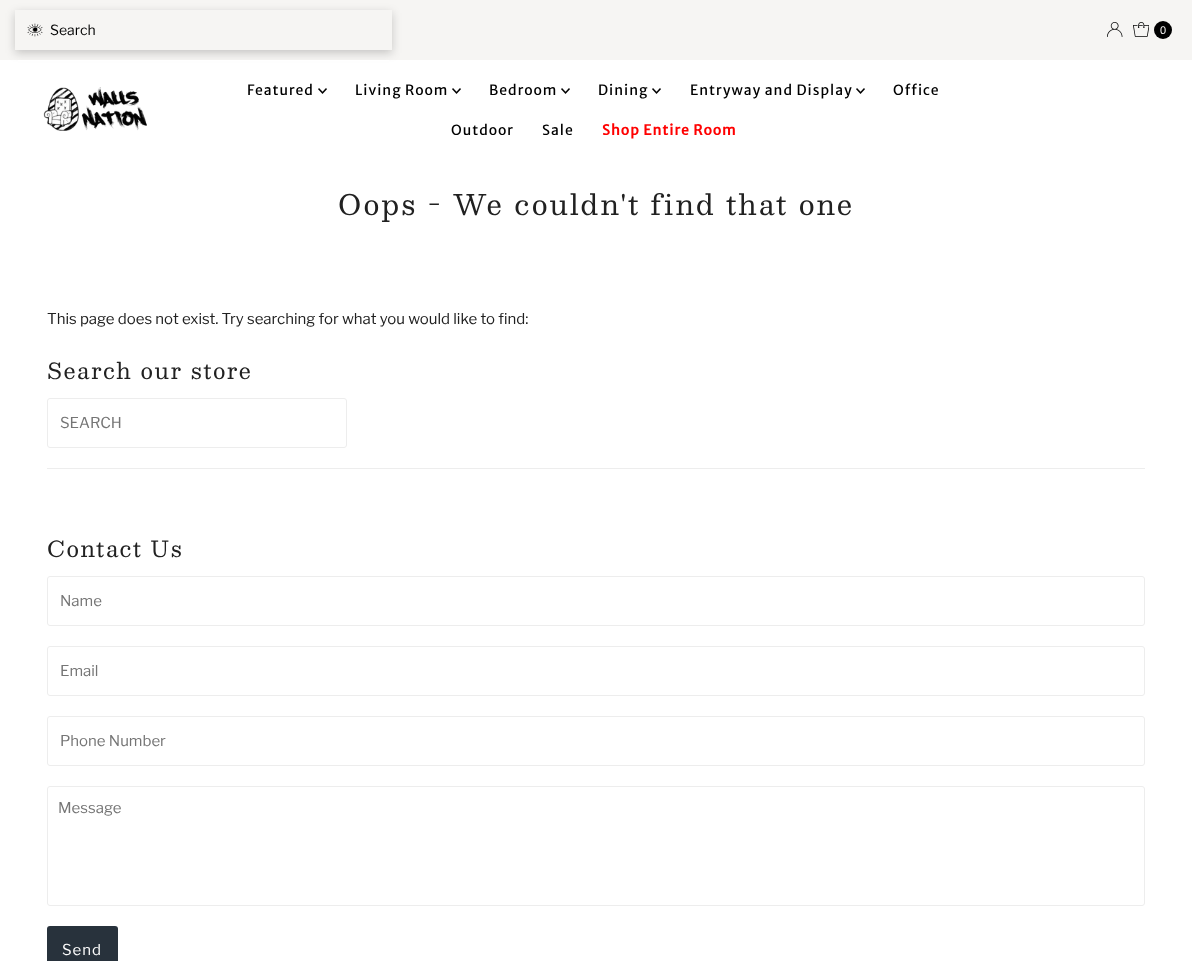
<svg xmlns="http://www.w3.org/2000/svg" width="1192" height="961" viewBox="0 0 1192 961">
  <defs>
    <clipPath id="clip1"><path d="M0 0H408V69H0ZM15 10H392V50H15Z" clip-rule="evenodd"/></clipPath>
    <filter id="blur1" x="-50%" y="-200%" width="200%" height="500%"><feGaussianBlur stdDeviation="5"/></filter>
  </defs>
  <rect width="100%" height="100%" fill="#ffffff"/>
  <rect x="0" y="0" width="1192" height="60" fill="#f6f5f3"/>
  <g clip-path="url(#clip1)">
    <rect x="15" y="13" width="377" height="40" fill="#000000" fill-opacity="0.2" filter="url(#blur1)"/>
  </g>
  <image x="27" y="23" width="16" height="14" href="img1.png"/>
  <text x="50" y="35" font-family="Libre Franklin" font-size="14" fill="#000000">Search</text>
  <image x="1107" y="22" width="16" height="15" href="img2.png"/>
  <image x="1133" y="22" width="16" height="15" href="img3.png"/>
  <circle cx="1163" cy="30" r="9" fill="#000000"/>
  <text x="1160" y="34" font-family="Liberation Sans" font-size="11" fill="#f6f5f3">0</text>
  <rect x="18" y="60" width="371" height="1" fill="#ffffff"/>
  <image x="43" y="87" width="104" height="44" href="img4.png"/>
  <text x="247" y="95" font-family="Merriweather Sans" font-size="14" letter-spacing="1" fill="#000000">Featured</text>
  <image x="318" y="88" width="9" height="6" href="img5.png"/>
  <text x="355" y="95" font-family="Merriweather Sans" font-size="14" letter-spacing="1" fill="#000000">Living Room</text>
  <image x="452" y="88" width="9" height="6" href="img5.png"/>
  <text x="489" y="95" font-family="Merriweather Sans" font-size="14" letter-spacing="1" fill="#000000">Bedroom</text>
  <image x="561" y="88" width="9" height="6" href="img5.png"/>
  <text x="598" y="95" font-family="Merriweather Sans" font-size="14" letter-spacing="1" fill="#000000">Dining</text>
  <image x="652" y="88" width="9" height="6" href="img5.png"/>
  <text x="690" y="95" font-family="Merriweather Sans" font-size="14" letter-spacing="1" fill="#000000">Entryway and Display</text>
  <image x="856" y="88" width="9" height="6" href="img5.png"/>
  <text x="893" y="95" font-family="Merriweather Sans" font-size="14" letter-spacing="1" fill="#000000">Office</text>
  <text x="451" y="135" font-family="Merriweather Sans" font-size="14" letter-spacing="1" fill="#000000">Outdoor</text>
  <text x="542" y="135" font-family="Merriweather Sans" font-size="14" letter-spacing="1" fill="#000000">Sale</text>
  <text x="602" y="135" font-family="Merriweather Sans" font-size="14" font-weight="bold" letter-spacing="1" fill="#ff0000">Shop Entire Room</text>
  <text x="338" y="215" font-family="Besley" font-size="28" letter-spacing="2.1" fill="#212121">Oops - We couldn't find that one</text>
  <text x="47" y="324" font-family="Libre Franklin" font-size="15" fill="#212121">This page does not exist. Try searching for what you would like to find:</text>
  <rect x="47" y="468" width="1098" height="1" fill="#ededed"/>
  <text x="47" y="379" font-family="Besley" font-size="22" letter-spacing="1.6" fill="#212121">Search our store</text>
  <rect x="47.5" y="398.5" width="299" height="49" rx="2.5" fill="none" stroke="#ededed"/>
  <text x="60" y="428" font-family="Libre Franklin" font-size="15" fill="#757575">SEARCH</text>
  <text x="47" y="557" font-family="Besley" font-size="22" letter-spacing="1.6" fill="#212121">Contact Us</text>
  <rect x="47.5" y="576.5" width="1097" height="49" rx="2.5" fill="none" stroke="#ededed"/>
  <text x="60" y="606" font-family="Libre Franklin" font-size="15" fill="#757575">Name</text>
  <rect x="47.5" y="646.5" width="1097" height="49" rx="2.5" fill="none" stroke="#ededed"/>
  <text x="60" y="676" font-family="Libre Franklin" font-size="15" fill="#757575">Email</text>
  <rect x="47.5" y="716.5" width="1097" height="49" rx="2.5" fill="none" stroke="#ededed"/>
  <text x="60" y="746" font-family="Libre Franklin" font-size="15" fill="#757575">Phone Number</text>
  <rect x="47.5" y="786.5" width="1097" height="119" rx="2.5" fill="none" stroke="#ededed"/>
  <text x="58" y="813" font-family="Libre Franklin" font-size="15" fill="#757575">Message</text>
  <rect x="47" y="926" width="71" height="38" rx="3" fill="#28323c"/>
  <text x="62" y="955" font-family="Libre Franklin" font-size="15" letter-spacing="1" fill="#fdfdfd">Send</text>
</svg>
